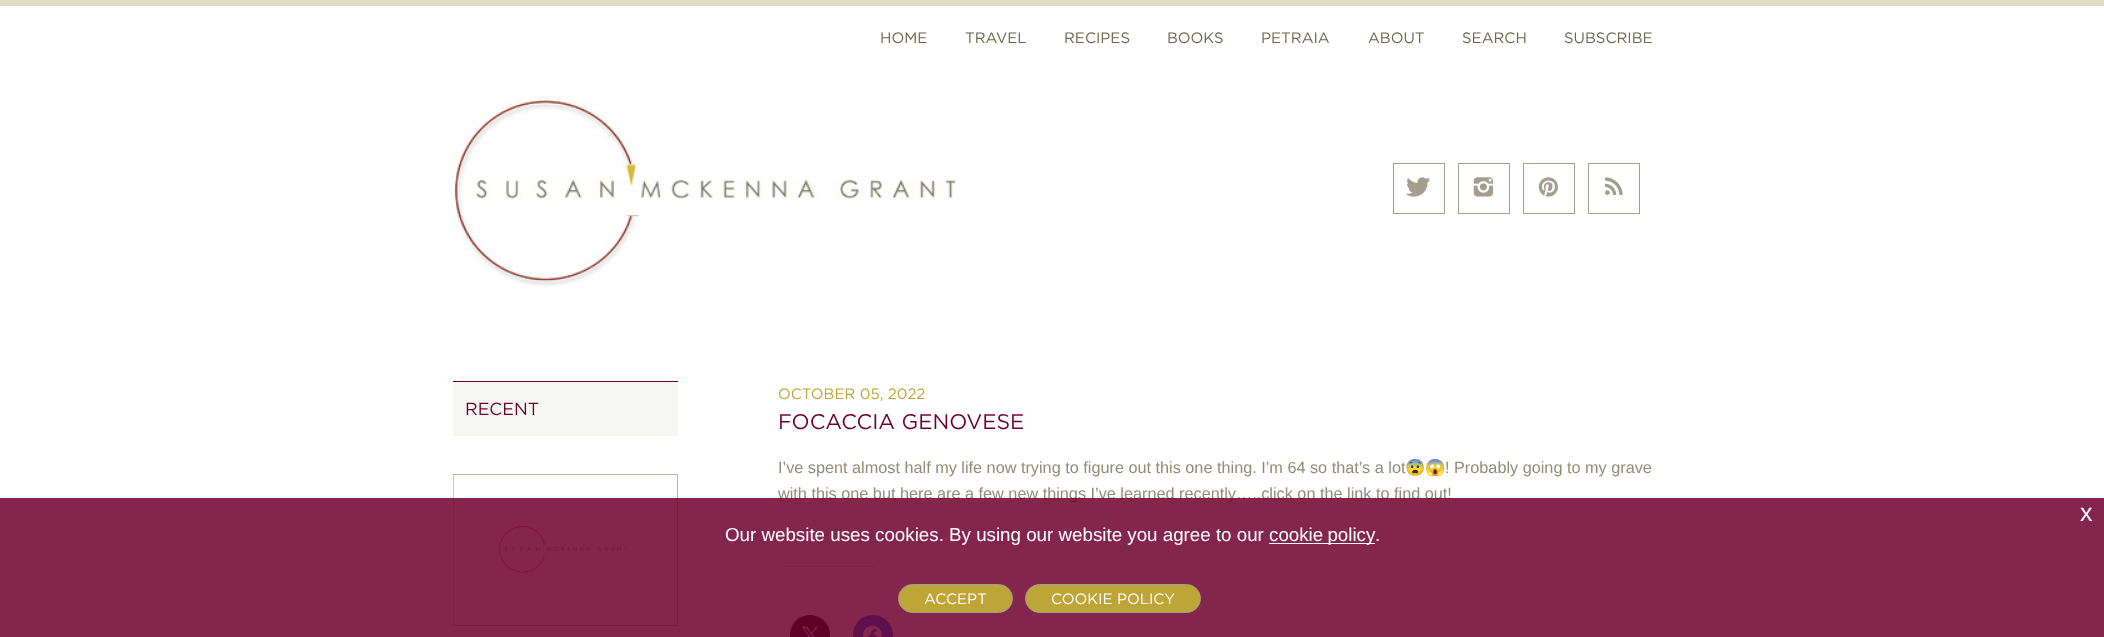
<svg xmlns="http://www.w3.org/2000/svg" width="2104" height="637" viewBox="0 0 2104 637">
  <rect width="100%" height="100%" fill="#ffffff"/>
  <rect x="0" y="0" width="2104" height="6" fill="#dcdcc2"/>
  <text x="880" y="43" font-family="Gotham" font-size="15" fill="#6d654c">HOME</text>
  <text x="965" y="43" font-family="Gotham" font-size="15" fill="#6d654c">TRAVEL</text>
  <text x="1064" y="43" font-family="Gotham" font-size="15" fill="#6d654c">RECIPES</text>
  <text x="1167" y="43" font-family="Gotham" font-size="15" fill="#6d654c">BOOKS</text>
  <text x="1261" y="43" font-family="Gotham" font-size="15" fill="#6d654c">PETRAIA</text>
  <text x="1368" y="43" font-family="Gotham" font-size="15" fill="#6d654c">ABOUT</text>
  <text x="1462" y="43" font-family="Gotham" font-size="15" fill="#6d654c">SEARCH</text>
  <text x="1564" y="43" font-family="Gotham" font-size="15" fill="#6d654c">SUBSCRIBE</text>
  <image x="452" y="100" width="504" height="187" href="img1.png"/>
  <rect x="1393.5" y="163.5" width="51" height="50" fill="none" stroke="#a39e8e"/>
  <image x="1406" y="177" width="24" height="20" href="img2.png"/>
  <rect x="1458.5" y="163.5" width="51" height="50" fill="none" stroke="#a39e8e"/>
  <image x="1473" y="177" width="20" height="20" href="img3.png"/>
  <rect x="1523.5" y="163.5" width="51" height="50" fill="none" stroke="#a39e8e"/>
  <image x="1538" y="177" width="20" height="20" href="img4.png"/>
  <rect x="1588.5" y="163.5" width="51" height="50" fill="none" stroke="#a39e8e"/>
  <image x="1605" y="177" width="18" height="18" href="img5.png"/>
  <rect x="453" y="382" width="225" height="54" fill="#f6f7f2"/>
  <rect x="453" y="381" width="225" height="1" fill="#6e002d"/>
  <text x="465" y="415" font-family="Gotham" font-size="17.5" fill="#6e002d">RECENT</text>
  <rect x="453.5" y="474.5" width="224" height="151" fill="none" stroke="#b9b5a9"/>
  <image x="453" y="475" width="173" height="150" href="img6.png"/>
  <text x="778" y="399" font-family="Gotham" font-size="15" fill="#bea538">OCTOBER 05, 2022</text>
  <text x="778" y="429" font-family="Gotham" font-size="21.25" fill="#6e002d">FOCACCIA GENOVESE</text>
  <text x="778" y="473" font-family="Liberation Sans" font-size="16.25" fill="#928b77">I’ve spent almost half my life now trying to figure out this one thing. I’m 64 so that’s a lot</text>
  <text x="1405" y="473" font-family="Noto Color Emoji" font-size="16.25" fill="#928b77">😨😱</text>
  <text x="1445" y="473" font-family="Liberation Sans" font-size="16.25" fill="#928b77">! Probably going to my grave</text>
  <text x="778" y="499" font-family="Liberation Sans" font-size="16.25" fill="#928b77">with this one but here are a few new things I’ve learned recently…..click on the link to find out!</text>
  <rect x="778" y="566" width="97" height="1" fill="#dcdcde"/>
  <circle cx="810" cy="635" r="20" fill="#000000"/>
  <image x="802" y="626" width="16" height="11" href="img7.png"/>
  <circle cx="873" cy="635" r="20" fill="#0866ff"/>
  <image x="863" y="625" width="19" height="12" href="img8.png"/>
  <rect x="0" y="498" width="2104" height="139" fill="#6e002d" fill-opacity="0.85"/>
  <text x="2080" y="521" font-family="Liberation Sans" font-size="25" fill="#ffffff">x</text>
  <text x="725" y="541" font-family="Liberation Sans" font-size="18.75" fill="#ffffff">Our website uses cookies. By using our website you agree to our</text>
  <rect x="1269" y="543" width="106" height="1" fill="#ffffff"/>
  <text x="1269" y="541" word-spacing="-1" font-family="Liberation Sans" font-size="18.75" fill="#ffffff">cookie policy</text>
  <text x="1375" y="541" font-family="Liberation Sans" font-size="18.75" fill="#ffffff">.</text>
  <rect x="898.5" y="584.5" width="114" height="28" rx="14" fill="#bea538" stroke="#a39e8e"/>
  <text x="924" y="604" font-family="Gotham" font-size="15" fill="#ffffff">ACCEPT</text>
  <rect x="1025.5" y="584.5" width="175" height="28" rx="14" fill="#bea538" stroke="#a39e8e"/>
  <text x="1051" y="604" font-family="Gotham" font-size="15" fill="#ffffff">COOKIE POLICY</text>
</svg>
